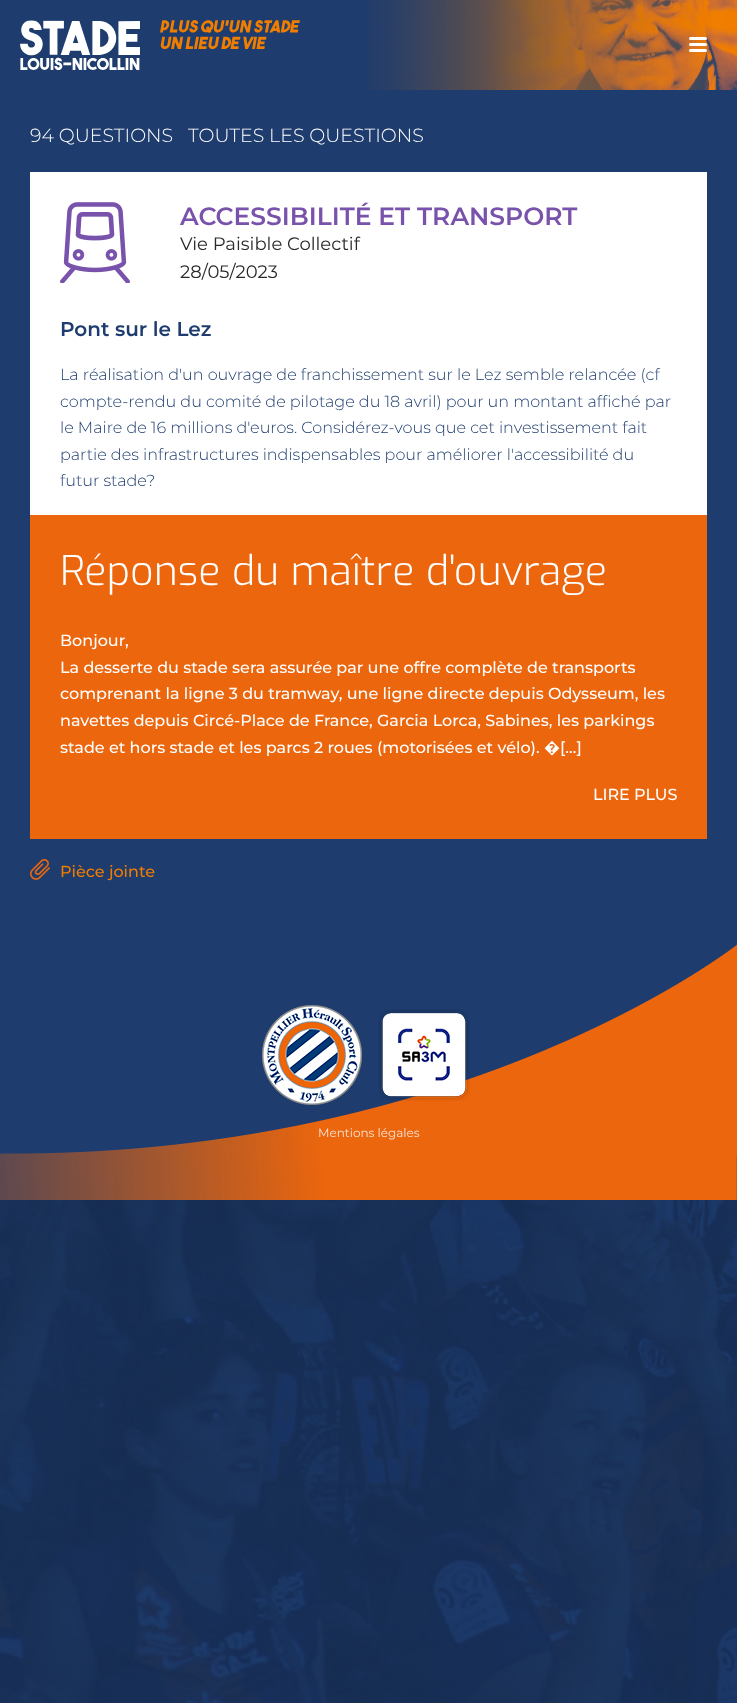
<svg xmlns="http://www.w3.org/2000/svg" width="737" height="1703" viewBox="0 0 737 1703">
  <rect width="100%" height="100%" fill="#ffffff"/>
  <image x="0" y="1200" width="737" height="503" href="img1.png"/>
  <rect x="0" y="0" width="712" height="90" fill="#1e3c6e"/>
  <image x="367" y="0" width="370" height="90" href="img2.png"/>
  <image x="20" y="20" width="120" height="50" href="img3.png"/>
  <image x="160" y="20" width="140" height="29" href="img4.png"/>
  <rect x="689" y="37" width="18" height="3" rx="1.5" fill="#ffffff"/>
  <rect x="689" y="43" width="18" height="3" rx="1.5" fill="#ffffff"/>
  <rect x="689" y="49" width="18" height="3" rx="1.5" fill="#ffffff"/>
  <rect x="0" y="90" width="737" height="1110" fill="#1e3c6e"/>
  <text x="30" y="142" font-family="Montserrat" font-size="19" font-weight="300" fill="#ffffff">94 QUESTIONS</text>
  <text x="188" y="142" font-family="Montserrat" font-size="19" font-weight="300" fill="#ffffff">TOUTES LES QUESTIONS</text>
  <rect x="30" y="172" width="677" height="343" fill="#ffffff"/>
  <image x="60" y="202" width="70" height="81" href="img5.png"/>
  <text x="180" y="225" font-family="Montserrat" font-size="25" font-weight="600" fill="#7852ab">ACCESSIBILITÉ ET TRANSPORT</text>
  <text x="180" y="250" font-family="Montserrat" font-size="18" fill="#292929">Vie Paisible Collectif</text>
  <text x="180" y="278" font-family="Montserrat" font-size="18" fill="#292929">28/05/2023</text>
  <text x="60" y="336" font-family="Montserrat" font-size="20" font-weight="600" fill="#1e3c6e">Pont sur le Lez</text>
  <text x="60" y="380" font-family="Montserrat" font-size="16" font-weight="300" fill="#1e3c6e">La réalisation d'un ouvrage de franchissement sur le Lez semble relancée (cf</text>
  <text x="60" y="407" font-family="Montserrat" font-size="16" font-weight="300" fill="#1e3c6e">compte-rendu du comité de pilotage du 18 avril) pour un montant affiché par</text>
  <text x="60" y="433" font-family="Montserrat" font-size="16" font-weight="300" fill="#1e3c6e">le Maire de 16 millions d'euros. Considérez-vous que cet investissement fait</text>
  <text x="60" y="460" font-family="Montserrat" font-size="16" font-weight="300" fill="#1e3c6e">partie des infrastructures indispensables pour améliorer l'accessibilité du</text>
  <text x="60" y="486" font-family="Montserrat" font-size="16" font-weight="300" fill="#1e3c6e">futur stade?</text>
  <rect x="30" y="515" width="677" height="324" fill="#ec660d"/>
  <text x="60" y="585" font-family="Exo" font-size="41" font-weight="300" fill="#ffffff">Réponse du maître d'ouvrage</text>
  <text x="60" y="646" font-family="Montserrat" font-size="16" font-weight="500" fill="#ffffff">Bonjour,</text>
  <text x="60" y="673" font-family="Montserrat" font-size="16" font-weight="500" fill="#ffffff">La desserte du stade sera assurée par une offre complète de transports</text>
  <text x="60" y="699" font-family="Montserrat" font-size="16" font-weight="500" fill="#ffffff">comprenant la ligne 3 du tramway, une ligne directe depuis Odysseum, les</text>
  <text x="60" y="726" font-family="Montserrat" font-size="16" font-weight="500" fill="#ffffff">navettes depuis Circé-Place de France, Garcia Lorca, Sabines, les parkings</text>
  <text x="60" y="753" font-family="Montserrat" font-size="16" font-weight="500" fill="#ffffff">stade et hors stade et les parcs 2 roues (motorisées et vélo).</text>
  <text x="544" y="753" font-family="Noto Sans" font-size="16" font-weight="500" fill="#ffffff">�</text>
  <text x="560" y="753" font-family="Montserrat" font-size="16" font-weight="500" fill="#ffffff">[…]</text>
  <text x="593" y="800" font-family="Montserrat" font-size="16" font-weight="500" fill="#ffffff">LIRE PLUS</text>
  <image x="30" y="859" width="20" height="21" href="img6.png"/>
  <text x="60" y="877" font-family="Montserrat" font-size="16" font-weight="500" fill="#f07d00">Pièce jointe</text>
  <image x="0" y="945" width="737" height="255" href="img7.png"/>
  <image x="262" y="1005" width="100" height="100" href="img8.png"/>
  <image x="378" y="1009" width="92" height="92" href="img9.png"/>
  <text x="318" y="1137" font-family="Montserrat" font-size="12" fill="#fbe0cf">Mentions légales</text>
</svg>
